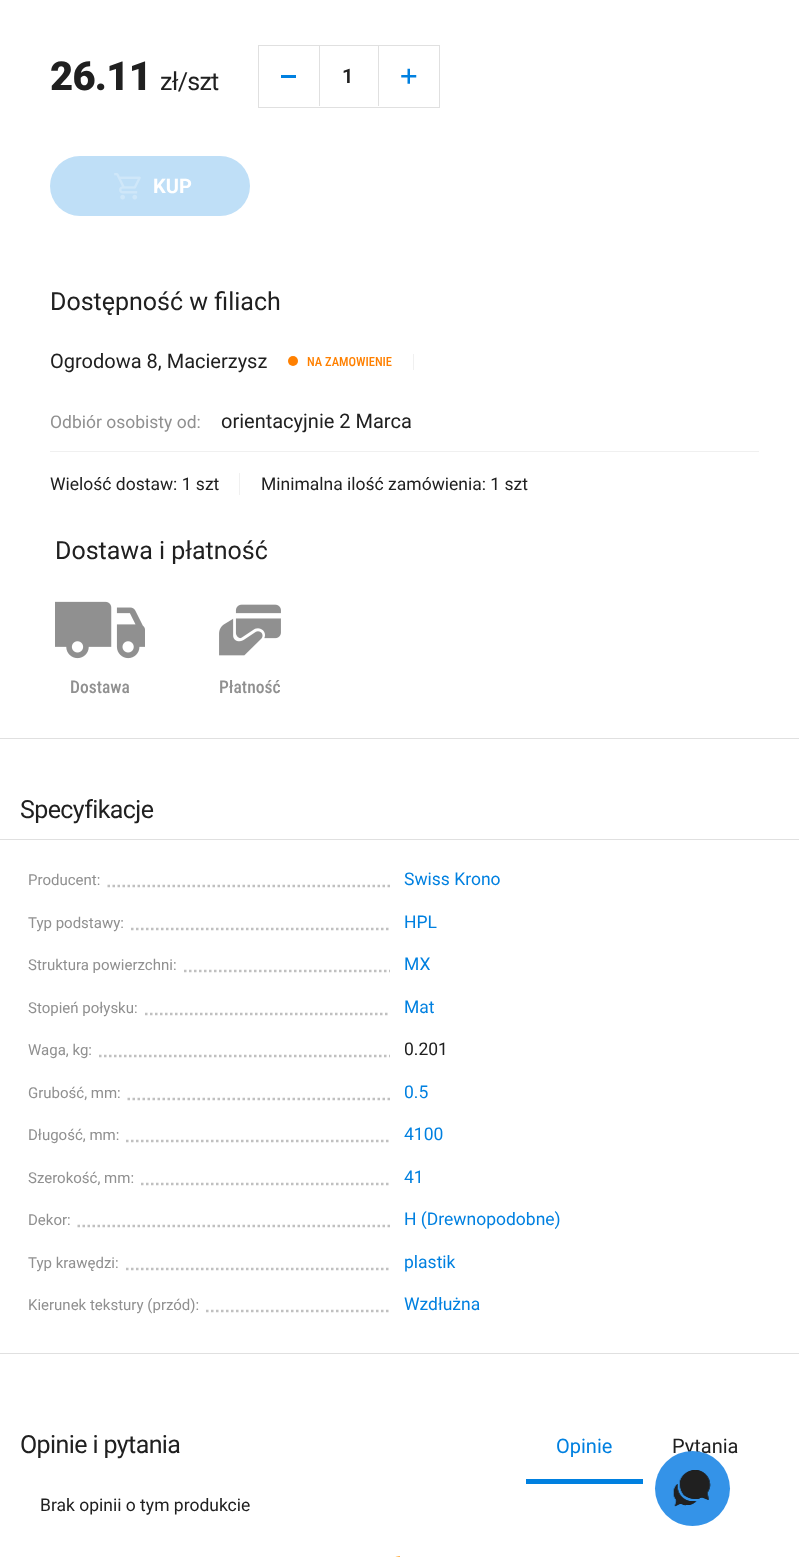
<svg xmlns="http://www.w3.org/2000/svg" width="806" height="1557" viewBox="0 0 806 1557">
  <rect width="100%" height="100%" fill="#ffffff"/>
  <rect x="0" y="738" width="799" height="1" fill="#e0e0e0"/>
  <text x="50" y="90" font-family="Roboto" font-size="40" font-weight="900" letter-spacing="-0.75" fill="#202020">26.11</text>
  <text x="160" y="90" font-family="Roboto" font-size="25" letter-spacing="-0.75" fill="#202020">zł/szt</text>
  <rect x="258.5" y="45.5" width="181" height="62" fill="none" stroke="#e0e0e0"/>
  <rect x="281" y="75" width="15" height="3" fill="#0080e0"/>
  <rect x="378" y="46" width="1" height="60" fill="#e0e0e0"/>
  <rect x="319" y="46" width="1" height="60" fill="#e0e0e0"/>
  <text x="342" y="83" font-family="Roboto" font-size="20" font-weight="600" fill="#202020">1</text>
  <image x="401" y="68" width="16" height="16" href="img1.png"/>
  <rect x="50" y="156" width="200" height="60" rx="30" fill="#bfdff7"/>
  <image x="114" y="173" width="27" height="27" href="img2.png"/>
  <text x="153" y="193" font-family="Roboto" font-size="20" font-weight="bold" fill="#ffffff">KUP</text>
  <text x="50" y="310" font-family="Roboto" font-size="25" fill="#202020">Dostępność w filiach</text>
  <rect x="50" y="451" width="709" height="1" fill="#f0f0f0"/>
  <text x="50" y="368" font-family="Roboto" font-size="20" fill="#202020">Ogrodowa 8, Мacierzysz</text>
  <circle cx="293" cy="361" r="5" fill="#ff8000"/>
  <rect x="413" y="354" width="1" height="16" fill="#f0f0f0"/>
  <text x="307" y="366" font-family="Roboto Condensed" font-size="12.5" font-weight="500" fill="#ff8000">NA ZAMOWIENIE</text>
  <text x="50" y="428" font-family="Roboto" font-size="17.5" fill="#909090">Odbiór osobisty od:</text>
  <text x="221" y="428" font-family="Roboto" font-size="20" fill="#202020">orientacyjnie 2 Marca</text>
  <rect x="239" y="473" width="1" height="22" fill="#f0f0f0"/>
  <text x="50" y="490" font-family="Roboto" font-size="17.5" fill="#202020">Wielość dostaw: 1 szt</text>
  <text x="261" y="490" font-family="Roboto" font-size="17.5" fill="#202020">Minimalna ilość zamówienia: 1 szt</text>
  <text x="55" y="559" font-family="Roboto" font-size="25" fill="#202020">Dostawa i płatność</text>
  <image x="55" y="601" width="90" height="58" href="img3.png"/>
  <text x="70" y="693" font-family="Roboto Condensed" font-size="17.5" font-weight="500" fill="#909090">Dostawa</text>
  <image x="219" y="604" width="62" height="52" href="img4.png"/>
  <text x="219" y="693" font-family="Roboto Condensed" font-size="17.5" font-weight="500" fill="#909090">Płatność</text>
  <text x="20" y="818" font-family="Roboto" font-size="25" letter-spacing="-0.6" fill="#202020">Specyfikacje</text>
  <rect x="0" y="839" width="799" height="1" fill="#e0e0e0"/>
  <rect x="0" y="1353" width="799" height="1" fill="#e0e0e0"/>
  <text x="28" y="885" font-family="Roboto" font-size="15" fill="#909090">Producent:</text>
  <path d="M107.5 886H390" fill="none" stroke="#c0c0c0" stroke-width="2.5" stroke-dasharray="2.5 2.5"/>
  <text x="404" y="885" font-family="Roboto" font-size="17.5" fill="#0080e0">Swiss Krono</text>
  <text x="28" y="928" font-family="Roboto" font-size="15" fill="#909090">Typ podstawy:</text>
  <path d="M131 929H390" fill="none" stroke="#c0c0c0" stroke-width="2.5" stroke-dasharray="2.5 2.5"/>
  <text x="404" y="928" font-family="Roboto" font-size="17.5" fill="#0080e0">HPL</text>
  <text x="28" y="970" font-family="Roboto" font-size="15" fill="#909090">Struktura powierzchni:</text>
  <path d="M184 971H390" fill="none" stroke="#c0c0c0" stroke-width="2.5" stroke-dasharray="2.5 2.5"/>
  <text x="404" y="970" font-family="Roboto" font-size="17.5" fill="#0080e0">MX</text>
  <text x="28" y="1013" font-family="Roboto" font-size="15" fill="#909090">Stopień połysku:</text>
  <path d="M145 1014H390" fill="none" stroke="#c0c0c0" stroke-width="2.5" stroke-dasharray="2.5 2.5"/>
  <text x="404" y="1013" font-family="Roboto" font-size="17.5" fill="#0080e0">Mat</text>
  <text x="28" y="1055" font-family="Roboto" font-size="15" fill="#909090">Waga, kg:</text>
  <path d="M99 1056H390" fill="none" stroke="#c0c0c0" stroke-width="2.5" stroke-dasharray="2.5 2.5"/>
  <text x="404" y="1055" font-family="Roboto" font-size="17.5" fill="#202020">0.201</text>
  <text x="28" y="1098" font-family="Roboto" font-size="15" fill="#909090">Grubość, mm:</text>
  <path d="M127.5 1099H390" fill="none" stroke="#c0c0c0" stroke-width="2.5" stroke-dasharray="2.5 2.5"/>
  <text x="404" y="1098" font-family="Roboto" font-size="17.5" fill="#0080e0">0.5</text>
  <text x="28" y="1140" font-family="Roboto" font-size="15" fill="#909090">Długość, mm:</text>
  <path d="M126 1141H390" fill="none" stroke="#c0c0c0" stroke-width="2.5" stroke-dasharray="2.5 2.5"/>
  <text x="404" y="1140" font-family="Roboto" font-size="17.5" fill="#0080e0">4100</text>
  <text x="28" y="1183" font-family="Roboto" font-size="15" fill="#909090">Szerokość, mm:</text>
  <path d="M141 1184H390" fill="none" stroke="#c0c0c0" stroke-width="2.5" stroke-dasharray="2.5 2.5"/>
  <text x="404" y="1183" font-family="Roboto" font-size="17.5" fill="#0080e0">41</text>
  <text x="28" y="1225" font-family="Roboto" font-size="15" fill="#909090">Dekor:</text>
  <path d="M77.5 1226H390" fill="none" stroke="#c0c0c0" stroke-width="2.5" stroke-dasharray="2.5 2.5"/>
  <text x="404" y="1225" font-family="Roboto" font-size="17.5" fill="#0080e0">H (Drewnopodobne)</text>
  <text x="28" y="1268" font-family="Roboto" font-size="15" fill="#909090">Typ krawędzi:</text>
  <path d="M126 1269H390" fill="none" stroke="#c0c0c0" stroke-width="2.5" stroke-dasharray="2.5 2.5"/>
  <text x="404" y="1268" font-family="Roboto" font-size="17.5" fill="#0080e0">plastik</text>
  <text x="28" y="1310" font-family="Roboto" font-size="15" fill="#909090">Kierunek tekstury (przód):</text>
  <path d="M206 1311H390" fill="none" stroke="#c0c0c0" stroke-width="2.5" stroke-dasharray="2.5 2.5"/>
  <text x="404" y="1310" font-family="Roboto" font-size="17.5" fill="#0080e0">Wzdłużna</text>
  <text x="20" y="1453" font-family="Roboto" font-size="25" letter-spacing="-0.6" fill="#202020">Opinie i pytania</text>
  <rect x="526" y="1479" width="117" height="5" fill="#0080e0"/>
  <text x="556" y="1453" font-family="Roboto" font-size="20" fill="#0080e0">Opinie</text>
  <text x="672" y="1453" font-family="Roboto" font-size="20" fill="#202020">Pytania</text>
  <text x="40" y="1511" font-family="Roboto" font-size="17.5" fill="#202020">Brak opinii o tym produkcie</text>
  <image x="395" y="1556" width="5" height="1" href="img5.png"/>
  <circle cx="692.5" cy="1488.5" r="37.5" fill="#3493e8"/>
  <image x="673" y="1470" width="38" height="37" href="img6.png"/>
</svg>
